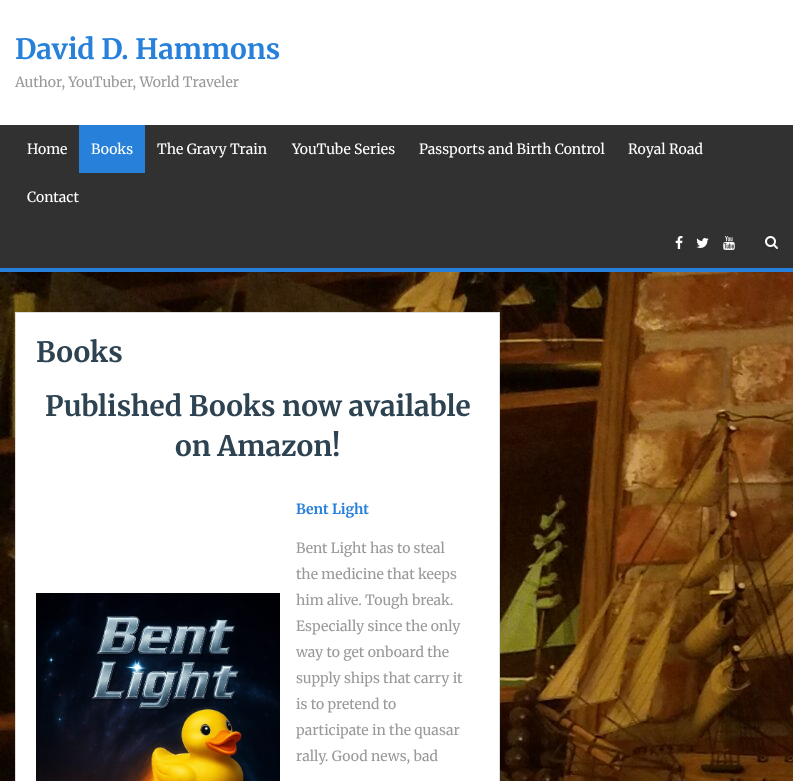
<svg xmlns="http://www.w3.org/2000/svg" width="793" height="781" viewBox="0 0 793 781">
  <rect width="100%" height="100%" fill="#ffffff"/>
  <image x="0" y="272" width="793" height="509" href="img1.png"/>
  <text x="15" y="59" font-family="Merriweather" font-size="28" font-weight="bold" fill="#2780da">David D. Hammons</text>
  <text x="15" y="87" font-family="Merriweather" font-size="14" fill="#999999">Author, YouTuber, World Traveler</text>
  <rect x="0" y="125" width="793" height="143" fill="#313131"/>
  <rect x="0" y="268" width="793" height="4" fill="#2780da"/>
  <text x="27" y="154" font-family="Merriweather" font-size="14" fill="#ffffff">Home</text>
  <rect x="79" y="125" width="66" height="48" fill="#2780da"/>
  <text x="91" y="154" font-family="Merriweather" font-size="14" fill="#ffffff">Books</text>
  <text x="157" y="154" font-family="Merriweather" font-size="14" fill="#ffffff">The Gravy Train</text>
  <text x="292" y="154" font-family="Merriweather" font-size="14" fill="#ffffff">YouTube Series</text>
  <text x="419" y="154" font-family="Merriweather" font-size="14" fill="#ffffff">Passports and Birth Control</text>
  <text x="628" y="154" font-family="Merriweather" font-size="14" fill="#ffffff">Royal Road</text>
  <text x="27" y="202" font-family="Merriweather" font-size="14" fill="#ffffff">Contact</text>
  <image x="675" y="236" width="8" height="13" href="img2.png"/>
  <image x="696" y="238" width="13" height="10" href="img3.png"/>
  <image x="723" y="236" width="12" height="14" href="img4.png"/>
  <image x="765" y="236" width="13" height="13" href="img5.png"/>
  <rect x="15.5" y="312.5" width="484" height="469" fill="#ffffff" stroke="#dddddd"/>
  <text x="36" y="362" font-family="Merriweather" font-size="28" font-weight="bold" fill="#2d4351">Books</text>
  <text x="45" y="416" font-family="Merriweather" font-size="28" font-weight="bold" fill="#2d4351">Published Books now available</text>
  <text x="175" y="456" font-family="Merriweather" font-size="28" font-weight="bold" fill="#2d4351">on Amazon!</text>
  <image x="36" y="593" width="244" height="188" href="img6.png"/>
  <text x="296" y="514" font-family="Merriweather" font-size="14" font-weight="bold" fill="#2780da">Bent Light</text>
  <text x="296" y="553" font-family="Merriweather" font-size="14" fill="#999999">Bent Light has to steal</text>
  <text x="296" y="579" font-family="Merriweather" font-size="14" fill="#999999">the medicine that keeps</text>
  <text x="296" y="605" font-family="Merriweather" font-size="14" fill="#999999">him alive. Tough break.</text>
  <text x="296" y="631" font-family="Merriweather" font-size="14" fill="#999999">Especially since the only</text>
  <text x="296" y="657" font-family="Merriweather" font-size="14" fill="#999999">way to get onboard the</text>
  <text x="296" y="683" font-family="Merriweather" font-size="14" fill="#999999">supply ships that carry it</text>
  <text x="296" y="709" font-family="Merriweather" font-size="14" fill="#999999">is to pretend to</text>
  <text x="296" y="735" font-family="Merriweather" font-size="14" fill="#999999">participate in the quasar</text>
  <text x="296" y="761" font-family="Merriweather" font-size="14" fill="#999999">rally. Good news, bad</text>
</svg>
